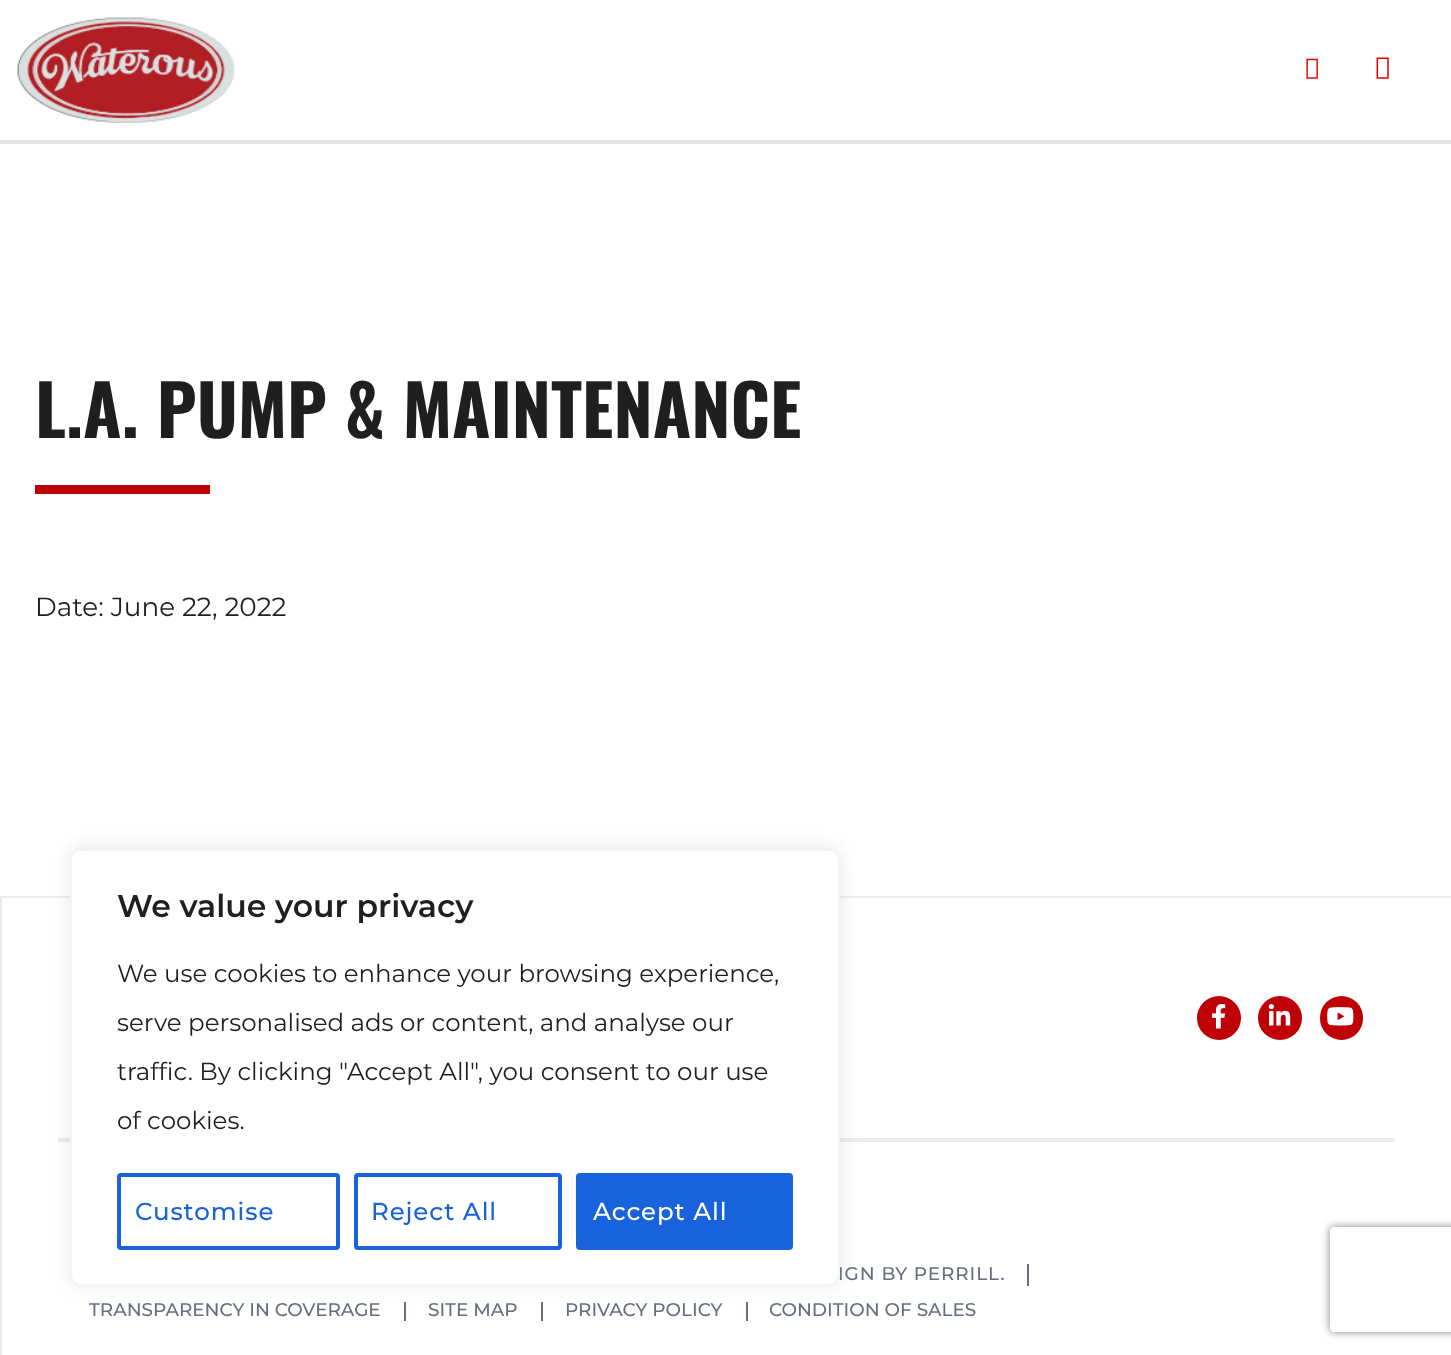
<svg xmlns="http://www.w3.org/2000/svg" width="1451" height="1355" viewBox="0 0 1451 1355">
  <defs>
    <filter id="blur1" x="-50%" y="-200%" width="200%" height="500%"><feGaussianBlur stdDeviation="9"/></filter>
    <clipPath id="clip1"><path d="M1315 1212H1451V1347H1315ZM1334 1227H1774C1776 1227 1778 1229 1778 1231V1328C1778 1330 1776 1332 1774 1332H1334C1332 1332 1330 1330 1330 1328V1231C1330 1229 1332 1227 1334 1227Z" clip-rule="evenodd"/></clipPath>
    <filter id="blur2" x="-50%" y="-200%" width="200%" height="500%"><feGaussianBlur stdDeviation="4.5"/></filter>
  </defs>
  <rect width="100%" height="100%" fill="#ffffff"/>
  <rect x="0" y="140" width="1451" height="4" fill="#e3e4e5"/>
  <image x="17" y="17" width="218" height="106" href="img1.png"/>
  <image x="1306" y="58" width="12" height="21" href="img2.png"/>
  <image x="1376" y="57" width="13" height="22" href="img3.png"/>
  <text x="35" y="438" font-family="Oswald" font-size="70" font-weight="bold" fill="#1f1f1f">L.A. PUMP &amp; MAINTENANCE</text>
  <rect x="35" y="485" width="175" height="9" fill="#bf0006"/>
  <text x="35" y="616" font-family="Montserrat" font-size="26.25" fill="#1f1f1f">Date: June 22, 2022</text>
  <rect x="1" y="897" width="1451" height="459" fill="none" stroke="#ebeced" stroke-width="2"/>
  <circle cx="1219" cy="1018" r="22" fill="#bf0006"/>
  <image x="1212" y="1004" width="14" height="25" href="img4.png"/>
  <circle cx="1280" cy="1018" r="22" fill="#bf0006"/>
  <image x="1268" y="1004" width="23" height="22" href="img5.png"/>
  <rect x="1320" y="996" width="43" height="44" rx="21.5" fill="#bf0006"/>
  <image x="1327" y="1007" width="27" height="19" href="img6.png"/>
  <rect x="58" y="1138" width="1337" height="4" fill="#ebeced"/>
  <text x="838" y="1280" font-family="Montserrat" font-size="18.4" font-weight="500" letter-spacing="0.9" fill="#666e80">IGN BY PERRILL.</text>
  <rect x="1027" y="1264" width="2" height="22" fill="#666e80"/>
  <rect x="404" y="1302" width="2" height="19" fill="#666e80"/>
  <text x="89" y="1316" font-family="Montserrat" font-size="18.4" font-weight="500" fill="#666e80">TRANSPARENCY IN COVERAGE</text>
  <rect x="541" y="1302" width="2" height="19" fill="#666e80"/>
  <text x="428" y="1316" font-family="Montserrat" font-size="18.4" font-weight="500" fill="#666e80">SITE MAP</text>
  <rect x="746" y="1302" width="2" height="19" fill="#666e80"/>
  <text x="565" y="1316" font-family="Montserrat" font-size="18.4" font-weight="500" fill="#666e80">PRIVACY POLICY</text>
  <text x="769" y="1316" font-family="Montserrat" font-size="18.4" font-weight="500" fill="#666e80">CONDITION OF SALES</text>
  <rect x="70" y="847" width="770" height="438" rx="11" fill="#acabab" fill-opacity="0.3" filter="url(#blur1)"/>
  <rect x="71" y="850" width="768" height="435" rx="10" fill="#ffffff" stroke="#f4f4f4" stroke-width="2"/>
  <text x="117" y="917" font-family="Montserrat" font-size="31.5" font-weight="600" fill="#1f1f1f">We value your privacy</text>
  <text x="117" y="982" font-family="Montserrat" font-size="24.5" fill="#1f1f1f">We use cookies to enhance your browsing experience,</text>
  <text x="117" y="1031" font-family="Montserrat" font-size="24.5" fill="#1f1f1f">serve personalised ads or content, and analyse our</text>
  <text x="117" y="1080" font-family="Montserrat" font-size="24.5" fill="#1f1f1f">traffic. By clicking "Accept All", you consent to our use</text>
  <text x="117" y="1129" font-family="Montserrat" font-size="24.5" fill="#1f1f1f">of cookies.</text>
  <rect x="119" y="1175" width="219" height="73" rx="2" fill="none" stroke="#1863dc" stroke-width="4"/>
  <text x="135" y="1220" font-family="Montserrat" font-size="24.5" font-weight="500" letter-spacing="0.9" fill="#1863dc">Customise</text>
  <rect x="356" y="1175" width="204" height="73" rx="2" fill="none" stroke="#1863dc" stroke-width="4"/>
  <text x="371" y="1220" font-family="Montserrat" font-size="24.5" font-weight="500" letter-spacing="0.9" fill="#1863dc">Reject All</text>
  <rect x="578" y="1175" width="213" height="73" rx="2" fill="#1863dc" stroke="#1863dc" stroke-width="4"/>
  <text x="593" y="1220" font-family="Montserrat" font-size="24.5" font-weight="500" letter-spacing="0.9" fill="#ffffff">Accept All</text>
  <g clip-path="url(#clip1)">
    <rect x="1330" y="1227" width="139" height="105" rx="4" fill="#808080" filter="url(#blur2)"/>
  </g>
</svg>
